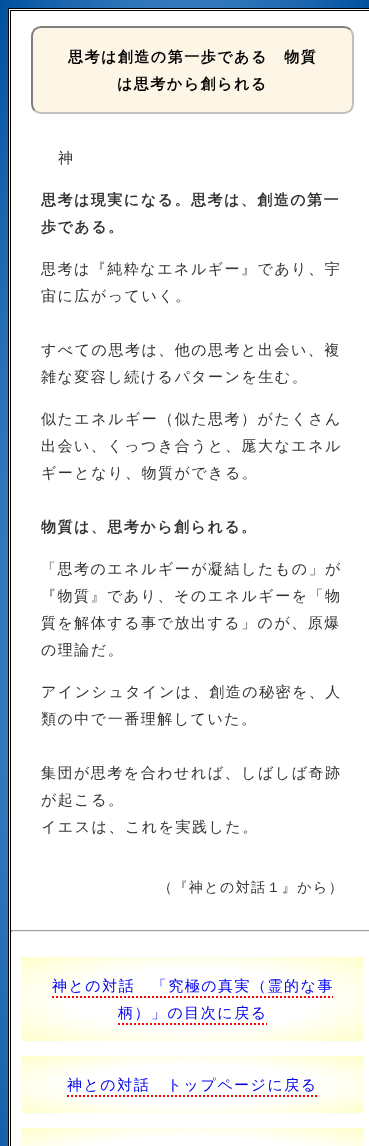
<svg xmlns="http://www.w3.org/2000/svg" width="369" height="1146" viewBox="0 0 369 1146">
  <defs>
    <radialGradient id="g1" gradientUnits="userSpaceOnUse" cx="0" cy="0" r="1" gradientTransform="matrix(261 0 0 923 185 653)"><stop offset="0" stop-color="#a9d6ff"/><stop offset="1" stop-color="#00509f"/></radialGradient>
    <radialGradient id="g2" gradientUnits="userSpaceOnUse" cx="0" cy="0" r="1" gradientTransform="matrix(243 0 0 59 193 999)"><stop offset="0.5" stop-color="#ffffff"/><stop offset="1" stop-color="#ffffcc"/></radialGradient>
    <radialGradient id="g3" gradientUnits="userSpaceOnUse" cx="0" cy="0" r="1" gradientTransform="matrix(243 0 0 40 193 1085)"><stop offset="0.5" stop-color="#ffffff"/><stop offset="1" stop-color="#ffffcc"/></radialGradient>
    <radialGradient id="g4" gradientUnits="userSpaceOnUse" cx="0" cy="0" r="1" gradientTransform="matrix(243 0 0 40 193 1157)"><stop offset="0.5" stop-color="#ffffff"/><stop offset="1" stop-color="#ffffcc"/></radialGradient>
  </defs>
  <rect width="100%" height="100%" fill="#ffffff"/>
  <rect x="0" y="0" width="369" height="1146" fill="url(#g1)"/>
  <rect x="8.5" y="8.5" width="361" height="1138" fill="#ffffff" stroke="#000000"/>
  <rect x="10.5" y="10.5" width="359" height="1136" fill="none" stroke="#000000"/>
  <rect x="31" y="26" width="323" height="88" rx="10" fill="#fdf5e6"/>
  <path d="M350.5 29.5C352 31.5 353 33.5 353 36V104C353 106.5 352 108.5 350.5 110.5C348.5 112 346.5 113 344 113H41C38.5 113 36.5 112 34.5 110.5" fill="none" stroke="#c0c0c0" stroke-width="2"/>
  <path d="M34.5 110.5C33 108.5 32 106.5 32 104V36C32 33.5 33 31.5 34.5 29.5C36.5 28 38.5 27 41 27H344C346.5 27 348.5 28 350.5 29.5" fill="none" stroke="#808080" stroke-width="2"/>
  <text x="68" y="62" font-family="WenQuanYi Zen Hei" font-size="15" font-weight="bold" letter-spacing="1.5" fill="#000000">思考は創造の第一歩である　物質</text>
  <text x="117" y="89" font-family="WenQuanYi Zen Hei" font-size="15" font-weight="bold" letter-spacing="1.5" fill="#000000">は思考から創られる</text>
  <text x="58" y="163" font-family="WenQuanYi Zen Hei" font-size="15" font-weight="500" letter-spacing="1.5" fill="#333333">神</text>
  <text x="41" y="205" font-family="WenQuanYi Zen Hei" font-size="15" font-weight="bold" letter-spacing="1.5" fill="#333333">思考は現実になる。思考は、創造の第一</text>
  <text x="41" y="232" font-family="WenQuanYi Zen Hei" font-size="15" font-weight="bold" letter-spacing="1.5" fill="#333333">歩である。</text>
  <text x="41" y="274" font-family="WenQuanYi Zen Hei" font-size="15" font-weight="500" letter-spacing="1.5" fill="#333333">思考は『純粋なエネルギー』であり、宇</text>
  <text x="41" y="301" font-family="WenQuanYi Zen Hei" font-size="15" font-weight="500" letter-spacing="1.5" fill="#333333">宙に広がっていく。</text>
  <text x="41" y="355" font-family="WenQuanYi Zen Hei" font-size="15" font-weight="500" letter-spacing="1.5" fill="#333333">すべての思考は、他の思考と出会い、複</text>
  <text x="41" y="382" font-family="WenQuanYi Zen Hei" font-size="15" font-weight="500" letter-spacing="1.5" fill="#333333">雑な変容し続けるパターンを生む。</text>
  <text x="41" y="424" font-family="WenQuanYi Zen Hei" font-size="15" font-weight="500" letter-spacing="1.5" fill="#333333">似たエネルギー（似た思考）がたくさん</text>
  <text x="41" y="451" font-family="WenQuanYi Zen Hei" font-size="15" font-weight="500" letter-spacing="1.5" fill="#333333">出会い、くっつき合うと、厖大なエネル</text>
  <text x="41" y="478" font-family="WenQuanYi Zen Hei" font-size="15" font-weight="500" letter-spacing="1.5" fill="#333333">ギーとなり、物質ができる。</text>
  <text x="41" y="532" font-family="WenQuanYi Zen Hei" font-size="15" font-weight="bold" letter-spacing="1.5" fill="#333333">物質は、思考から創られる。</text>
  <text x="41" y="574" font-family="WenQuanYi Zen Hei" font-size="15" font-weight="500" letter-spacing="1.5" fill="#333333">「思考のエネルギーが凝結したもの」が</text>
  <text x="41" y="601" font-family="WenQuanYi Zen Hei" font-size="15" font-weight="500" letter-spacing="1.5" fill="#333333">『物質』であり、そのエネルギーを「物</text>
  <text x="41" y="628" font-family="WenQuanYi Zen Hei" font-size="15" font-weight="500" letter-spacing="1.5" fill="#333333">質を解体する事で放出する」のが、原爆</text>
  <text x="41" y="655" font-family="WenQuanYi Zen Hei" font-size="15" font-weight="500" letter-spacing="1.5" fill="#333333">の理論だ。</text>
  <text x="41" y="697" font-family="WenQuanYi Zen Hei" font-size="15" font-weight="500" letter-spacing="1.5" fill="#333333">アインシュタインは、創造の秘密を、人</text>
  <text x="41" y="724" font-family="WenQuanYi Zen Hei" font-size="15" font-weight="500" letter-spacing="1.5" fill="#333333">類の中で一番理解していた。</text>
  <text x="41" y="778" font-family="WenQuanYi Zen Hei" font-size="15" font-weight="500" letter-spacing="1.5" fill="#333333">集団が思考を合わせれば、しばしば奇跡</text>
  <text x="41" y="805" font-family="WenQuanYi Zen Hei" font-size="15" font-weight="500" letter-spacing="1.5" fill="#333333">が起こる。</text>
  <text x="41" y="832" font-family="WenQuanYi Zen Hei" font-size="15" font-weight="500" letter-spacing="1.5" fill="#333333">イエスは、これを実践した。</text>
  <text x="158" y="892" font-family="WenQuanYi Zen Hei" font-size="14" font-weight="500" letter-spacing="1.4" fill="#333333">（『神との対話１』から）</text>
  <rect x="11" y="930" width="358" height="1" fill="#9f9f9f"/>
  <rect x="11" y="931" width="358" height="1" fill="#eeeeee"/>
  <rect x="11" y="930" width="1" height="2" fill="#9f9f9f"/>
  <rect x="21" y="957" width="343" height="84" fill="url(#g2)"/>
  <text x="52" y="991" font-family="WenQuanYi Zen Hei" font-size="15" font-weight="500" letter-spacing="1.5" fill="#0000ee">神との対話　「究極の真実（霊的な事</text>
  <path d="M52 997H333" fill="none" stroke="#ff0000" stroke-width="2" stroke-dasharray="2 2"/>
  <text x="118" y="1018" font-family="WenQuanYi Zen Hei" font-size="15" font-weight="500" letter-spacing="1.5" fill="#0000ee">柄）」の目次に戻る</text>
  <path d="M118 1024H267" fill="none" stroke="#ff0000" stroke-width="2" stroke-dasharray="2 2"/>
  <rect x="21" y="1056" width="343" height="57" fill="url(#g3)"/>
  <text x="67" y="1090" font-family="WenQuanYi Zen Hei" font-size="15" font-weight="500" letter-spacing="1.5" fill="#0000ee">神との対話　トップページに戻る</text>
  <path d="M67 1096H318" fill="none" stroke="#ff0000" stroke-width="2" stroke-dasharray="2 2"/>
  <rect x="21" y="1128" width="343" height="18" fill="url(#g4)"/>
</svg>
